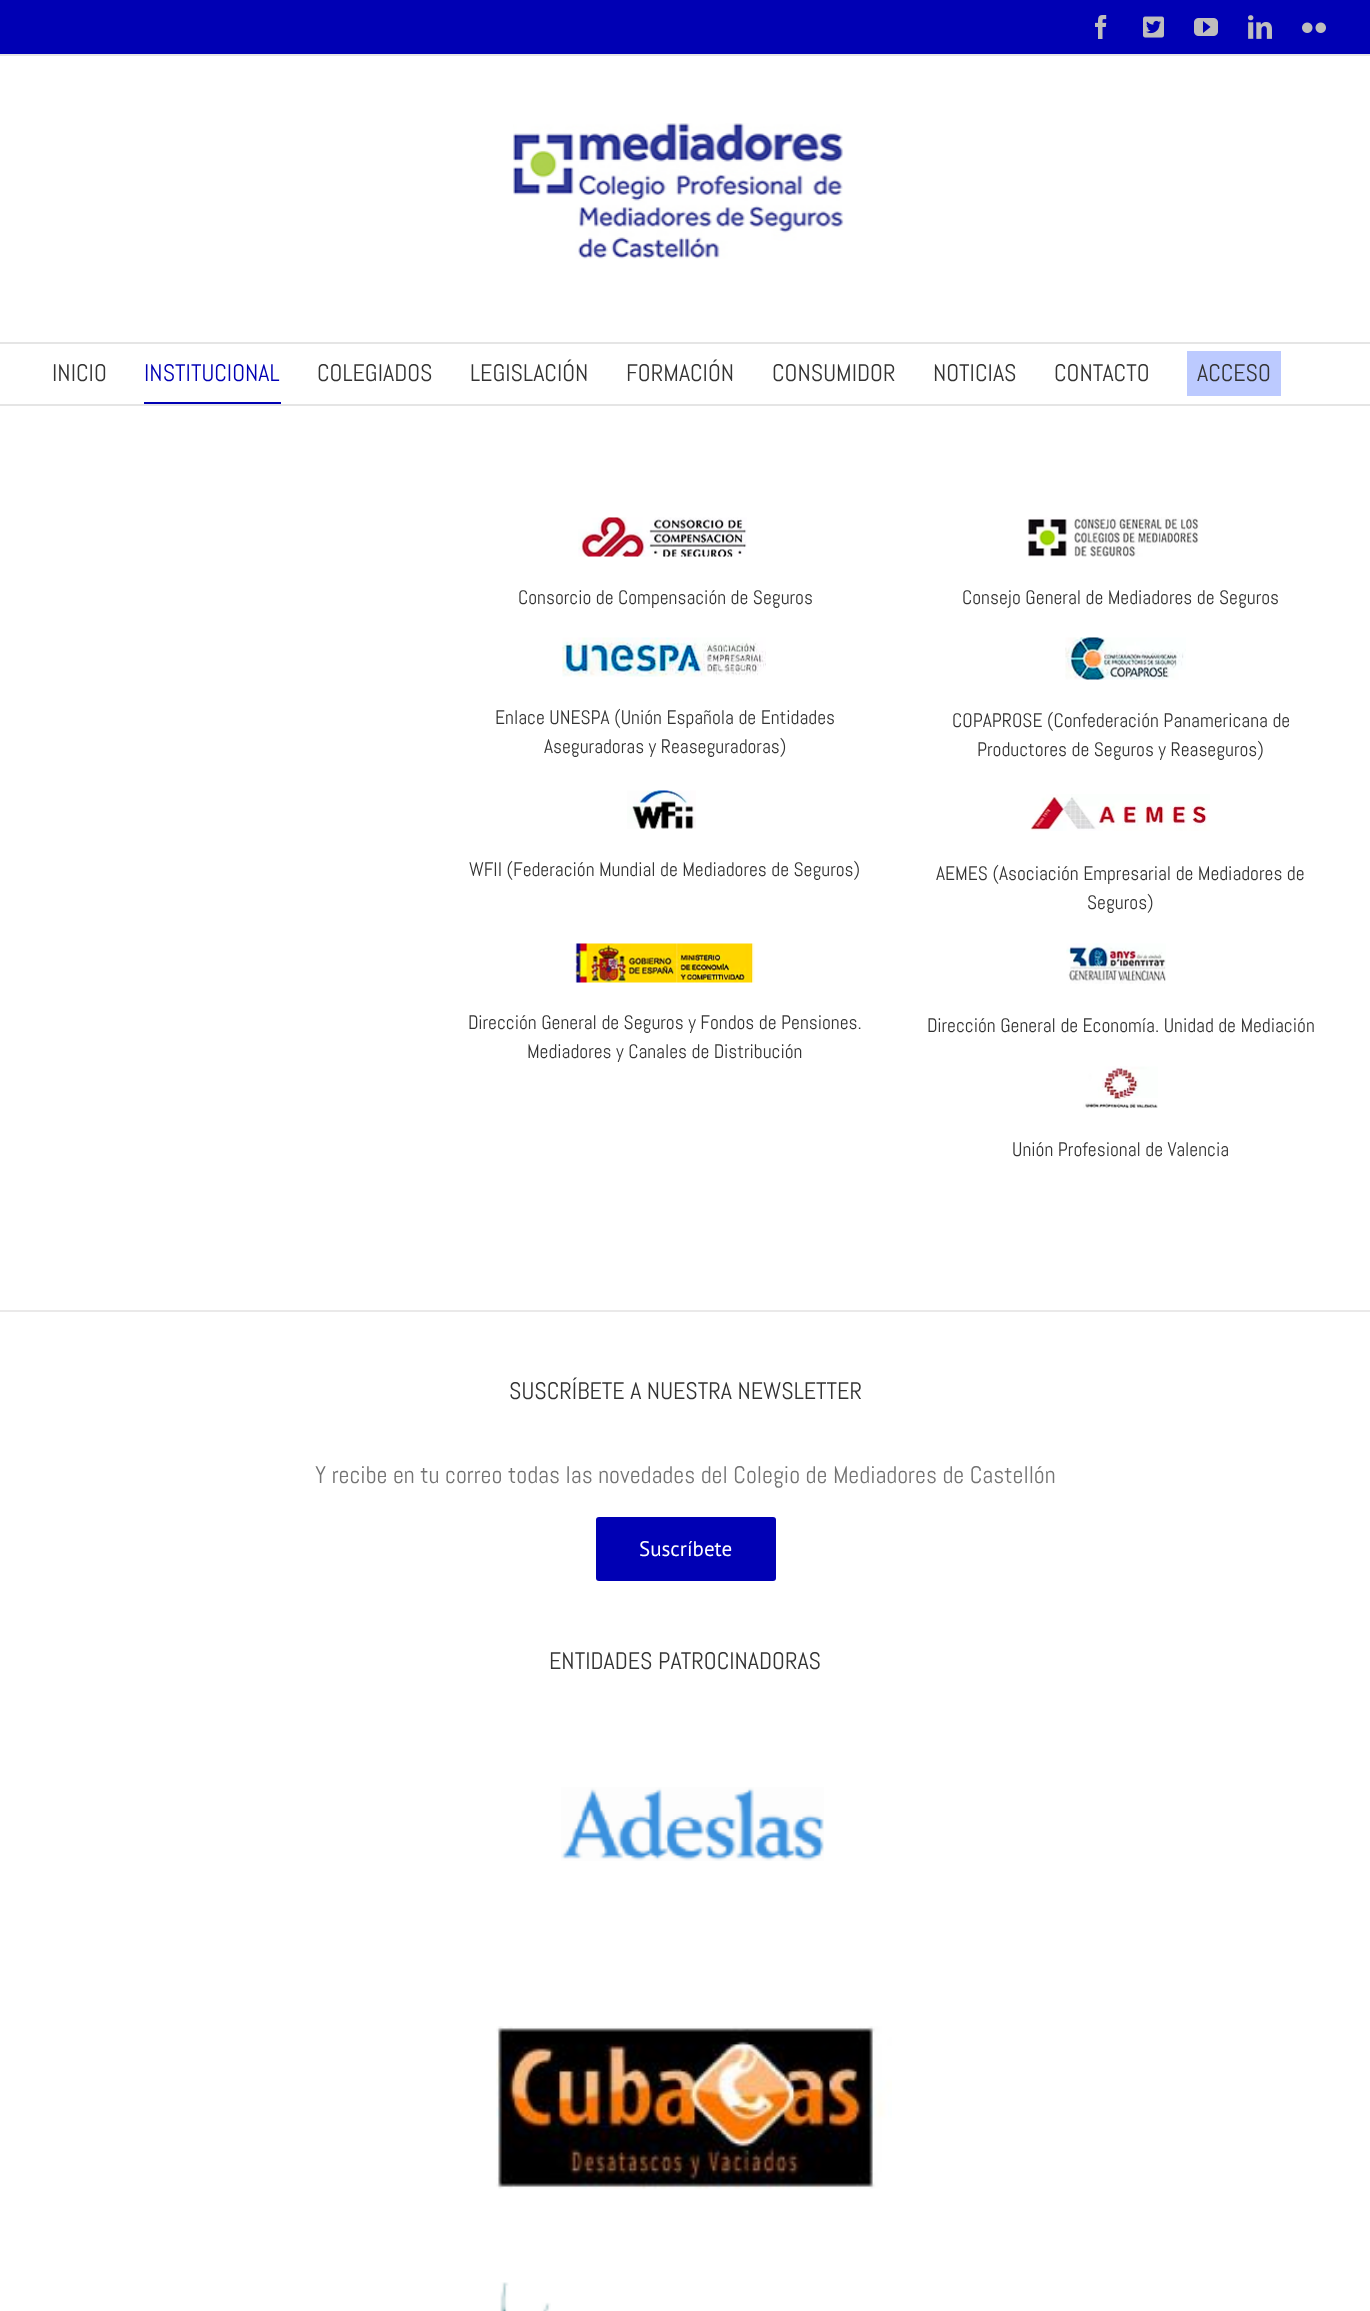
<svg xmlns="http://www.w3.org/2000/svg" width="1370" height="2311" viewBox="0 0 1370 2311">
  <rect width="100%" height="100%" fill="#ffffff"/>
  <rect x="0" y="0" width="1370" height="54" fill="#0000b4"/>
  <rect x="0" y="54" width="1370" height="2" fill="#e5e5e5"/>
  <image x="1095" y="15" width="12" height="24" href="img1.png"/>
  <image x="1143" y="16" width="21" height="22" href="img2.png"/>
  <image x="1194" y="18" width="24" height="18" href="img3.png"/>
  <image x="1248" y="15" width="24" height="24" href="img4.png"/>
  <image x="1302" y="22" width="24" height="11" href="img5.png"/>
  <rect x="0" y="342" width="1370" height="2" fill="#e5e5e5"/>
  <image x="513" y="123" width="331" height="136" href="img6.png"/>
  <rect x="0" y="404" width="1370" height="2" fill="#e5e5e5"/>
  <text x="52" y="381" font-family="Abel" font-size="24" fill="#333333">INICIO</text>
  <text x="144" y="381" font-family="Abel" font-size="24" fill="#0000b4">INSTITUCIONAL</text>
  <rect x="144" y="402" width="137" height="2" fill="#0000b4"/>
  <text x="317" y="381" font-family="Abel" font-size="24" fill="#333333">COLEGIADOS</text>
  <text x="470" y="381" font-family="Abel" font-size="24" fill="#333333">LEGISLACIÓN</text>
  <text x="626" y="381" font-family="Abel" font-size="24" fill="#333333">FORMACIÓN</text>
  <text x="772" y="381" font-family="Abel" font-size="24" fill="#333333">CONSUMIDOR</text>
  <text x="933" y="381" font-family="Abel" font-size="24" fill="#333333">NOTICIAS</text>
  <text x="1054" y="381" font-family="Abel" font-size="24" fill="#333333">CONTACTO</text>
  <rect x="1187" y="351" width="94" height="45" fill="#bccaff"/>
  <text x="1197" y="381" font-family="Abel" font-size="24" fill="#333333">ACCESO</text>
  <image x="578" y="517" width="169" height="40" href="img7.png"/>
  <text x="518" y="604" font-family="Abel" font-size="19.5" fill="#333333">Consorcio de Compensación de Seguros</text>
  <image x="1027" y="517" width="172" height="40" href="img8.png"/>
  <text x="962" y="604" font-family="Abel" font-size="19.5" fill="#333333">Consejo General de Mediadores de Seguros</text>
  <image x="562" y="637" width="204" height="40" href="img9.png"/>
  <text x="495" y="724" font-family="Abel" font-size="19.5" fill="#333333">Enlace UNESPA (Unión Española de Entidades</text>
  <text x="544" y="753" font-family="Abel" font-size="19.5" fill="#333333">Aseguradoras y Reaseguradoras)</text>
  <image x="1065" y="637" width="121" height="43" href="img10.png"/>
  <text x="952" y="727" font-family="Abel" font-size="19.5" fill="#333333">COPAPROSE (Confederación Panamericana de</text>
  <text x="977" y="756" font-family="Abel" font-size="19.5" fill="#333333">Productores de Seguros y Reaseguros)</text>
  <image x="627" y="790" width="69" height="39" href="img11.png"/>
  <text x="469" y="876" font-family="Abel" font-size="19.5" fill="#333333">WFII (Federación Mundial de Mediadores de Seguros)</text>
  <image x="1030" y="794" width="180" height="37" href="img12.png"/>
  <text x="936" y="880" font-family="Abel" font-size="19.5" fill="#333333">AEMES (Asociación Empresarial de Mediadores de</text>
  <text x="1087" y="909" font-family="Abel" font-size="19.5" fill="#333333">Seguros)</text>
  <image x="570" y="943" width="185" height="40" href="img13.png"/>
  <text x="468" y="1029" font-family="Abel" font-size="19.5" fill="#333333">Dirección General de Seguros y Fondos de Pensiones.</text>
  <text x="527" y="1058" font-family="Abel" font-size="19.5" fill="#333333">Mediadores y Canales de Distribución</text>
  <image x="1066" y="943" width="100" height="41" href="img14.png"/>
  <text x="927" y="1032" font-family="Abel" font-size="19.5" fill="#333333">Dirección General de Economía. Unidad de Mediación</text>
  <image x="1083" y="1066" width="75" height="43" href="img15.png"/>
  <text x="1012" y="1156" font-family="Abel" font-size="19.5" fill="#333333">Unión Profesional de Valencia</text>
  <rect x="0" y="1310" width="1370" height="2" fill="#eae9e9"/>
  <text x="509" y="1399" font-family="Abel" font-size="24" fill="#333333">SUSCRÍBETE A NUESTRA NEWSLETTER</text>
  <text x="315" y="1483" font-family="Abel" font-size="24" fill="#747474">Y recibe en tu correo todas las novedades del Colegio de Mediadores de Castellón</text>
  <rect x="596" y="1517" width="180" height="64" rx="3" fill="#0000b4"/>
  <text x="639" y="1556" font-family="PT Sans" font-size="21" fill="#ffffff">Suscríbete</text>
  <text x="549" y="1669" font-family="Abel" font-size="24" fill="#333333">ENTIDADES PATROCINADORAS</text>
  <image x="561" y="1787" width="263" height="74" href="img16.png"/>
  <image x="496" y="2026" width="396" height="163" href="img17.png"/>
  <image x="500" y="2282" width="51" height="29" href="img18.png"/>
</svg>
